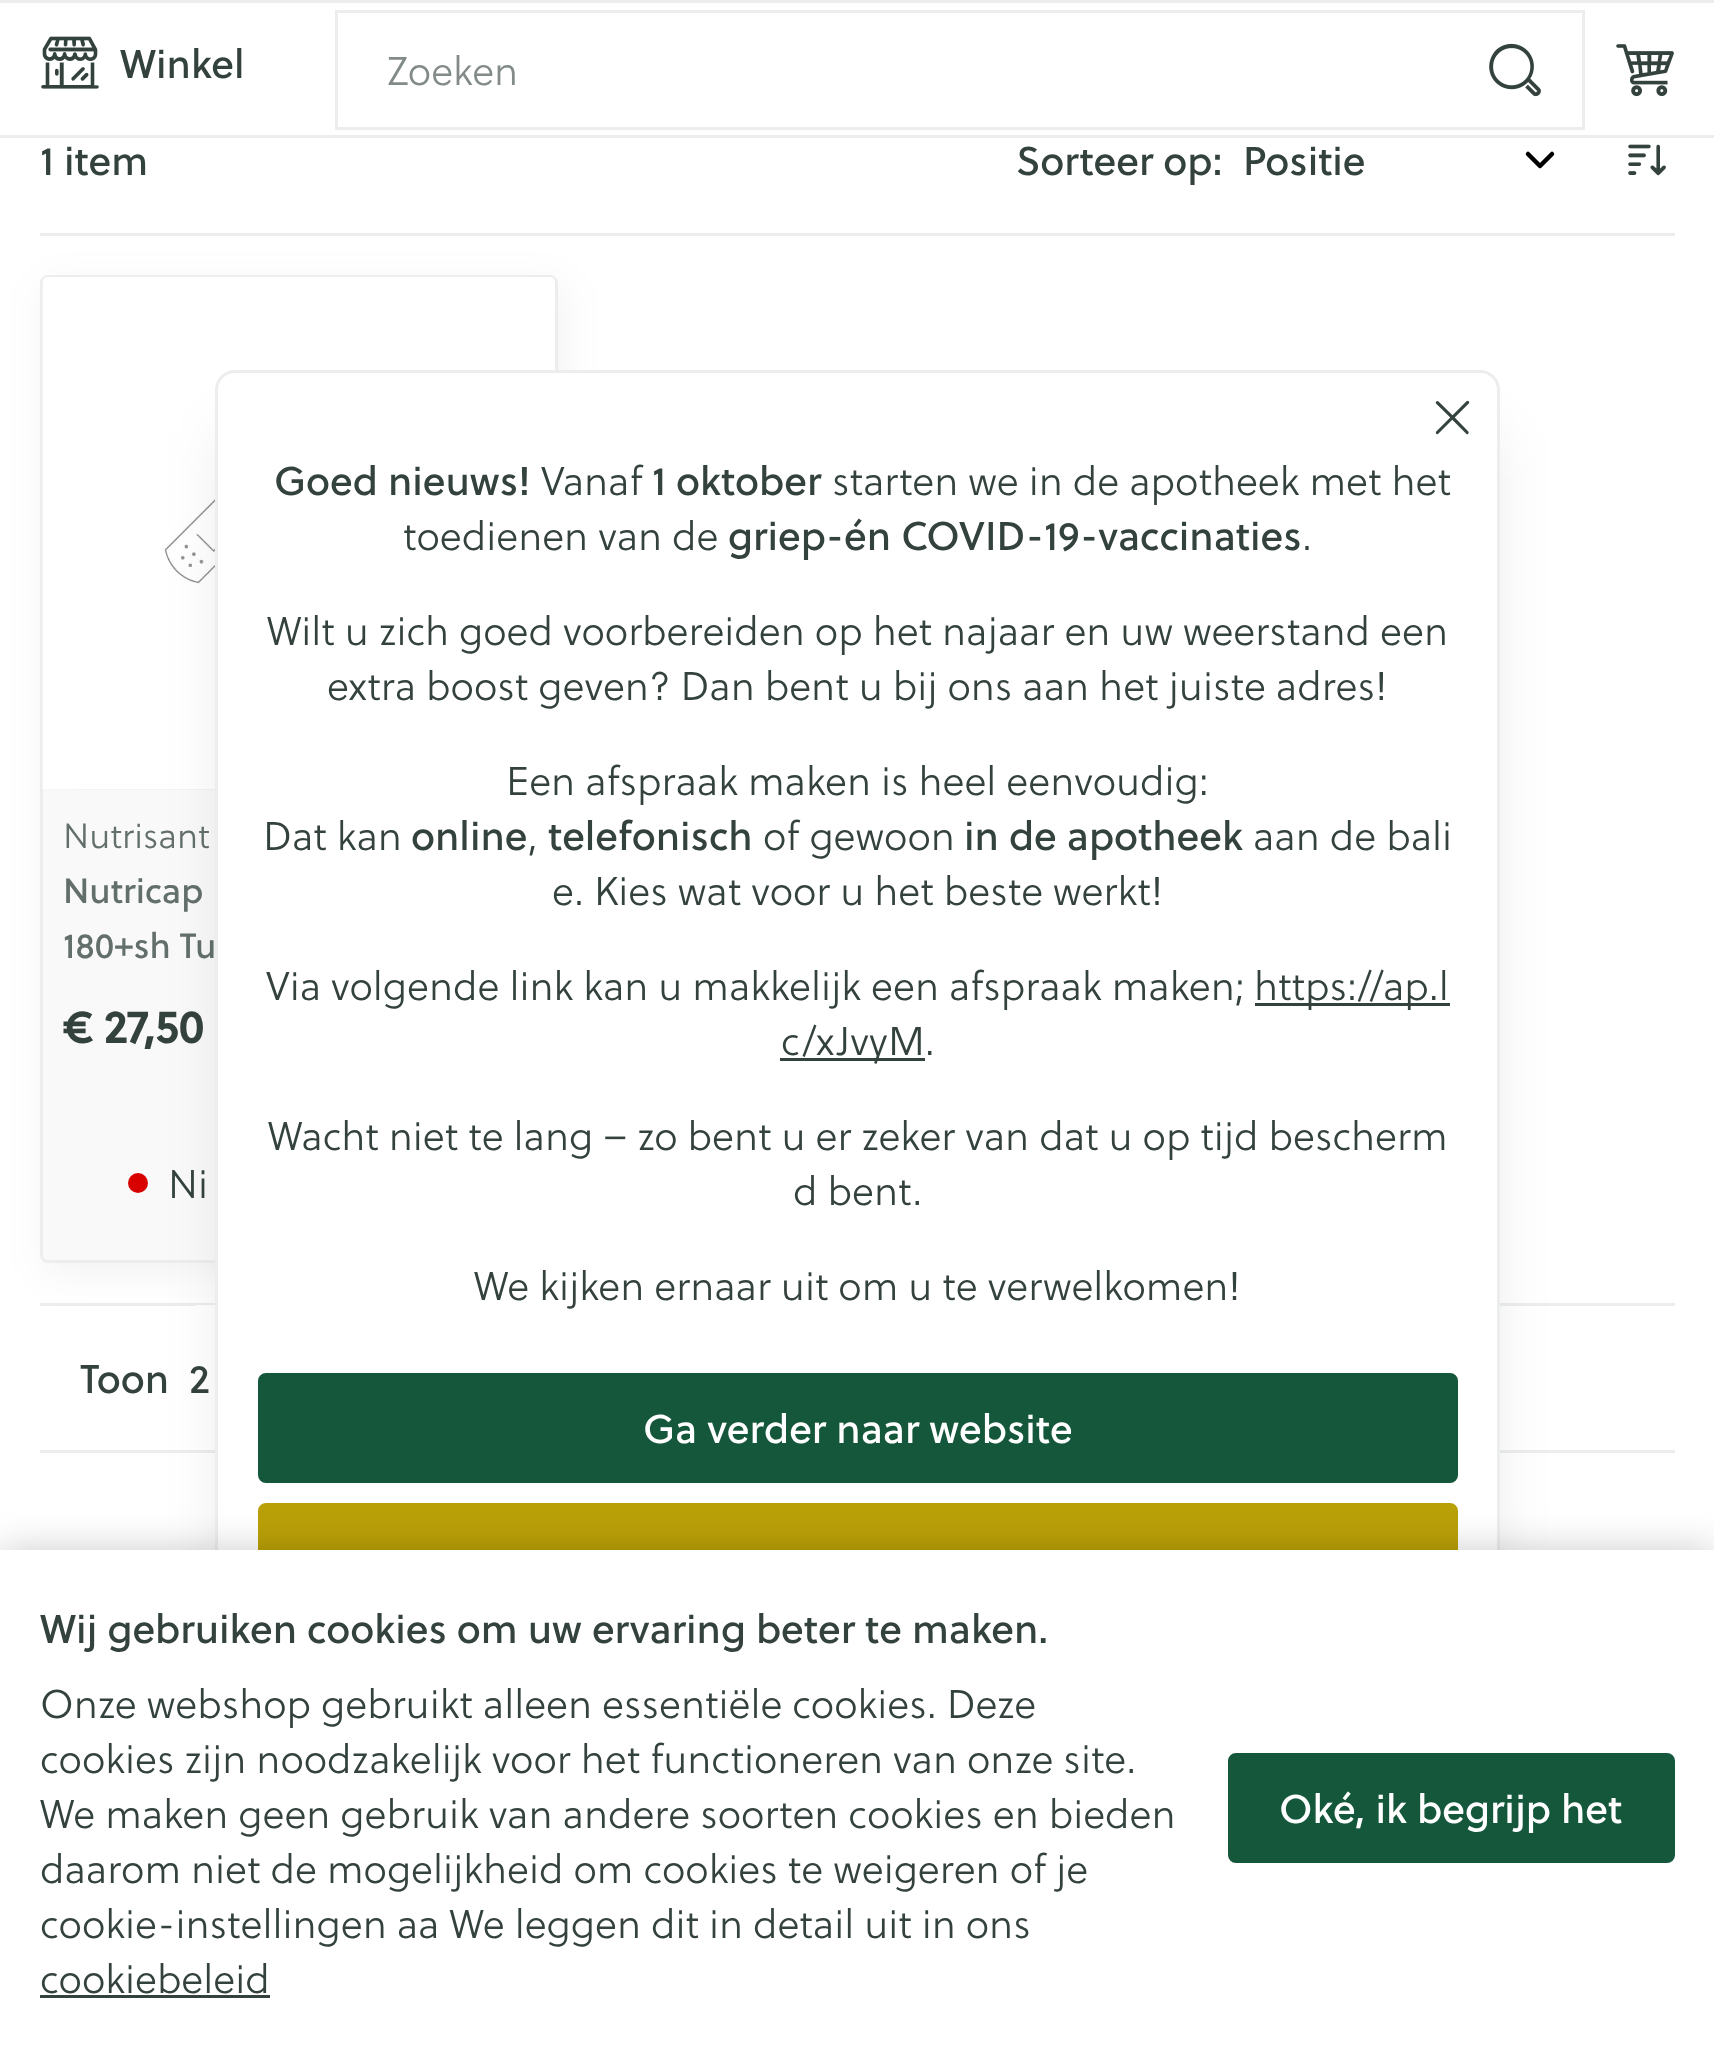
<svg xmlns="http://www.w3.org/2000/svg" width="1714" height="2063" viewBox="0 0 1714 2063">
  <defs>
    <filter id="blur1" x="-50%" y="-200%" width="200%" height="500%"><feGaussianBlur stdDeviation="20"/></filter>
    <filter id="blur2" x="-50%" y="-200%" width="200%" height="500%"><feGaussianBlur stdDeviation="31"/></filter>
    <filter id="blur3" x="-50%" y="-200%" width="200%" height="500%"><feGaussianBlur stdDeviation="19"/></filter>
  </defs>
  <rect width="100%" height="100%" fill="#ffffff"/>
  <rect x="0" y="0" width="1714" height="3" fill="#eceeed"/>
  <rect x="0" y="135" width="1714" height="3" fill="#eceeed"/>
  <image x="41" y="36" width="58" height="53" href="img1.png"/>
  <text x="120" y="78" font-family="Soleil" font-size="40" fill="#34423e">Winkel</text>
  <rect x="336.5" y="11.5" width="1247" height="117" fill="none" stroke="#eceeed" stroke-width="3"/>
  <text x="387" y="85" font-family="Soleil" font-size="40" font-weight="300" fill="#828b89">Zoeken</text>
  <image x="1489" y="43" width="52" height="54" href="img2.png"/>
  <image x="1616" y="44" width="58" height="53" href="img3.png"/>
  <rect x="40" y="1450" width="1635" height="3" fill="#eceeed"/>
  <text x="40" y="175" font-family="Soleil" font-size="40" fill="#34423e">1 item</text>
  <text x="1016" y="175" font-family="Soleil" font-size="40" fill="#34423e">Sorteer op:</text>
  <path d="M1528 154L1540 166L1552 154" fill="none" stroke="#000000" stroke-width="4.5" stroke-linecap="round" stroke-linejoin="round"/>
  <text x="1243" y="175" font-family="Soleil" font-size="40" fill="#34423e">Positie</text>
  <image x="1628" y="144" width="38" height="32" href="img4.png"/>
  <rect x="40" y="233" width="1635" height="3" fill="#eceeed"/>
  <rect x="40" y="1303" width="1635" height="3" fill="#eceeed"/>
  <rect x="190" y="1305" width="125" height="145" rx="8" fill="#ffffff"/>
  <rect x="45" y="285" width="518" height="988" rx="8" fill="#000000" fill-opacity="0.05" filter="url(#blur1)"/>
  <rect x="41.5" y="276.5" width="515" height="985" rx="6.5" fill="none" stroke="#eceeed" stroke-width="3"/>
  <image x="42" y="277" width="513" height="512" href="img5.png"/>
  <path d="M43 790H555V1255C555 1258 553 1260 550 1260H48C45 1260 43 1258 43 1255Z" fill="#f9f9f9"/>
  <text x="63" y="848" font-family="Soleil" font-size="35" font-weight="300" fill="#636f6b">Nutrisant</text>
  <text x="63" y="903" font-family="Soleil" font-size="35" fill="#636f6b">Nutricap</text>
  <text x="63" y="958" font-family="Soleil" font-size="35" fill="#636f6b">180+sh Tu</text>
  <text x="63" y="1043" font-family="Soleil" font-size="45" font-weight="bold" fill="#34423e">€ 27,50</text>
  <circle cx="138" cy="1183" r="10" fill="#d90000"/>
  <text x="168" y="1198" font-family="Soleil" font-size="40" font-weight="300" fill="#34423e">Ni</text>
  <text x="80" y="1393" font-family="Soleil" font-size="40" fill="#34423e">Toon</text>
  <text x="189" y="1393" font-family="Soleil" font-size="40" fill="#34423e">2</text>
  <rect x="228" y="433" width="1260" height="1300" rx="8" fill="#000000" fill-opacity="0.1" filter="url(#blur2)"/>
  <rect x="216.5" y="371.5" width="1282" height="1322" rx="18.5" fill="#ffffff" stroke="#eceeed" stroke-width="3"/>
  <image x="1435" y="400" width="35" height="35" href="img6.png"/>
  <text x="274" y="495" font-family="Soleil" font-size="40" fill="#34423e">Goed nieuws!</text>
  <text x="541" y="495" font-family="Soleil" font-size="40" font-weight="300" fill="#34423e">Vanaf</text>
  <text x="652" y="495" font-family="Soleil" font-size="40" fill="#34423e">1 oktober</text>
  <text x="832" y="495" font-family="Soleil" font-size="40" font-weight="300" fill="#34423e">starten we in de apotheek met het</text>
  <text x="403" y="550" font-family="Soleil" font-size="40" font-weight="300" fill="#34423e">toedienen van de</text>
  <text x="728" y="550" font-family="Soleil" font-size="40" fill="#34423e">griep-én COVID-19-vaccinaties</text>
  <text x="1302" y="550" font-family="Soleil" font-size="40" font-weight="300" fill="#34423e">.</text>
  <text x="267" y="645" font-family="Soleil" font-size="40" font-weight="300" fill="#34423e">Wilt u zich goed voorbereiden op het najaar en uw weerstand een</text>
  <text x="327" y="700" font-family="Soleil" font-size="40" font-weight="300" fill="#34423e">extra boost geven? Dan bent u bij ons aan het juiste adres!</text>
  <text x="506" y="795" font-family="Soleil" font-size="40" font-weight="300" fill="#34423e">Een afspraak maken is heel eenvoudig:</text>
  <text x="263" y="850" font-family="Soleil" font-size="40" font-weight="300" fill="#34423e">Dat kan</text>
  <text x="411" y="850" font-family="Soleil" font-size="40" fill="#34423e">online</text>
  <text x="528" y="850" font-family="Soleil" font-size="40" font-weight="300" fill="#34423e">,</text>
  <text x="548" y="850" font-family="Soleil" font-size="40" fill="#34423e">telefonisch</text>
  <text x="763" y="850" font-family="Soleil" font-size="40" font-weight="300" fill="#34423e">of gewoon</text>
  <text x="964" y="850" font-family="Soleil" font-size="40" fill="#34423e">in de apotheek</text>
  <text x="1253" y="850" font-family="Soleil" font-size="40" font-weight="300" fill="#34423e">aan de bali</text>
  <text x="552" y="905" font-family="Soleil" font-size="40" font-weight="300" fill="#34423e">e. Kies wat voor u het beste werkt!</text>
  <text x="266" y="1000" font-family="Soleil" font-size="40" font-weight="300" fill="#34423e">Via volgende link kan u makkelijk een afspraak maken;</text>
  <rect x="1255" y="1003" width="195" height="3" fill="#34423e"/>
  <text x="1254" y="1000" font-family="Soleil" font-size="40" font-weight="300" fill="#34423e">https://ap.l</text>
  <rect x="780" y="1058" width="145" height="3" fill="#34423e"/>
  <text x="781" y="1055" font-family="Soleil" font-size="40" font-weight="300" fill="#34423e">c/xJvyM.</text>
  <text x="268" y="1150" font-family="Soleil" font-size="40" font-weight="300" fill="#34423e">Wacht niet te lang – zo bent u er zeker van dat u op tijd bescherm</text>
  <text x="793" y="1205" font-family="Soleil" font-size="40" font-weight="300" fill="#34423e">d bent.</text>
  <text x="474" y="1300" font-family="Soleil" font-size="40" font-weight="300" fill="#34423e">We kijken ernaar uit om u te verwelkomen!</text>
  <rect x="259.5" y="1374.5" width="1197" height="107" rx="6.5" fill="#15573b" stroke="#15573b" stroke-width="3"/>
  <text x="643" y="1443" font-family="Soleil" font-size="40" fill="#ffffff">Ga verder naar website</text>
  <rect x="259.5" y="1504.5" width="1197" height="107" rx="6.5" fill="#baa007" stroke="#baa007" stroke-width="3"/>
  <rect x="0" y="1550" width="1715" height="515" fill="#000000" fill-opacity="0.2" filter="url(#blur3)"/>
  <rect x="0" y="1550" width="1714" height="513" fill="#ffffff"/>
  <text x="40" y="1643" font-family="Soleil" font-size="40" fill="#34423e">Wij gebruiken cookies om uw ervaring beter te maken.</text>
  <text x="40" y="1718" font-family="Soleil" font-size="40" font-weight="300" fill="#34423e">Onze webshop gebruikt alleen essentiële cookies. Deze</text>
  <text x="40" y="1773" font-family="Soleil" font-size="40" font-weight="300" fill="#34423e">cookies zijn noodzakelijk voor het functioneren van onze site.</text>
  <text x="40" y="1828" font-family="Soleil" font-size="40" font-weight="300" fill="#34423e">We maken geen gebruik van andere soorten cookies en bieden</text>
  <text x="40" y="1883" font-family="Soleil" font-size="40" font-weight="300" fill="#34423e">daarom niet de mogelijkheid om cookies te weigeren of je</text>
  <text x="40" y="1938" font-family="Soleil" font-size="40" font-weight="300" fill="#34423e">cookie-instellingen aa We leggen dit in detail uit in ons</text>
  <text x="40" y="1993" font-family="Soleil" font-size="40" font-weight="300" fill="#34423e">cookiebeleid</text>
  <rect x="40" y="1995" width="230" height="3" fill="#34423e"/>
  <rect x="1229.5" y="1754.5" width="444" height="107" rx="6.5" fill="#15573b" stroke="#15573b" stroke-width="3"/>
  <text x="1279" y="1823" font-family="Soleil" font-size="40" fill="#ffffff">Oké, ik begrijp het</text>
</svg>
